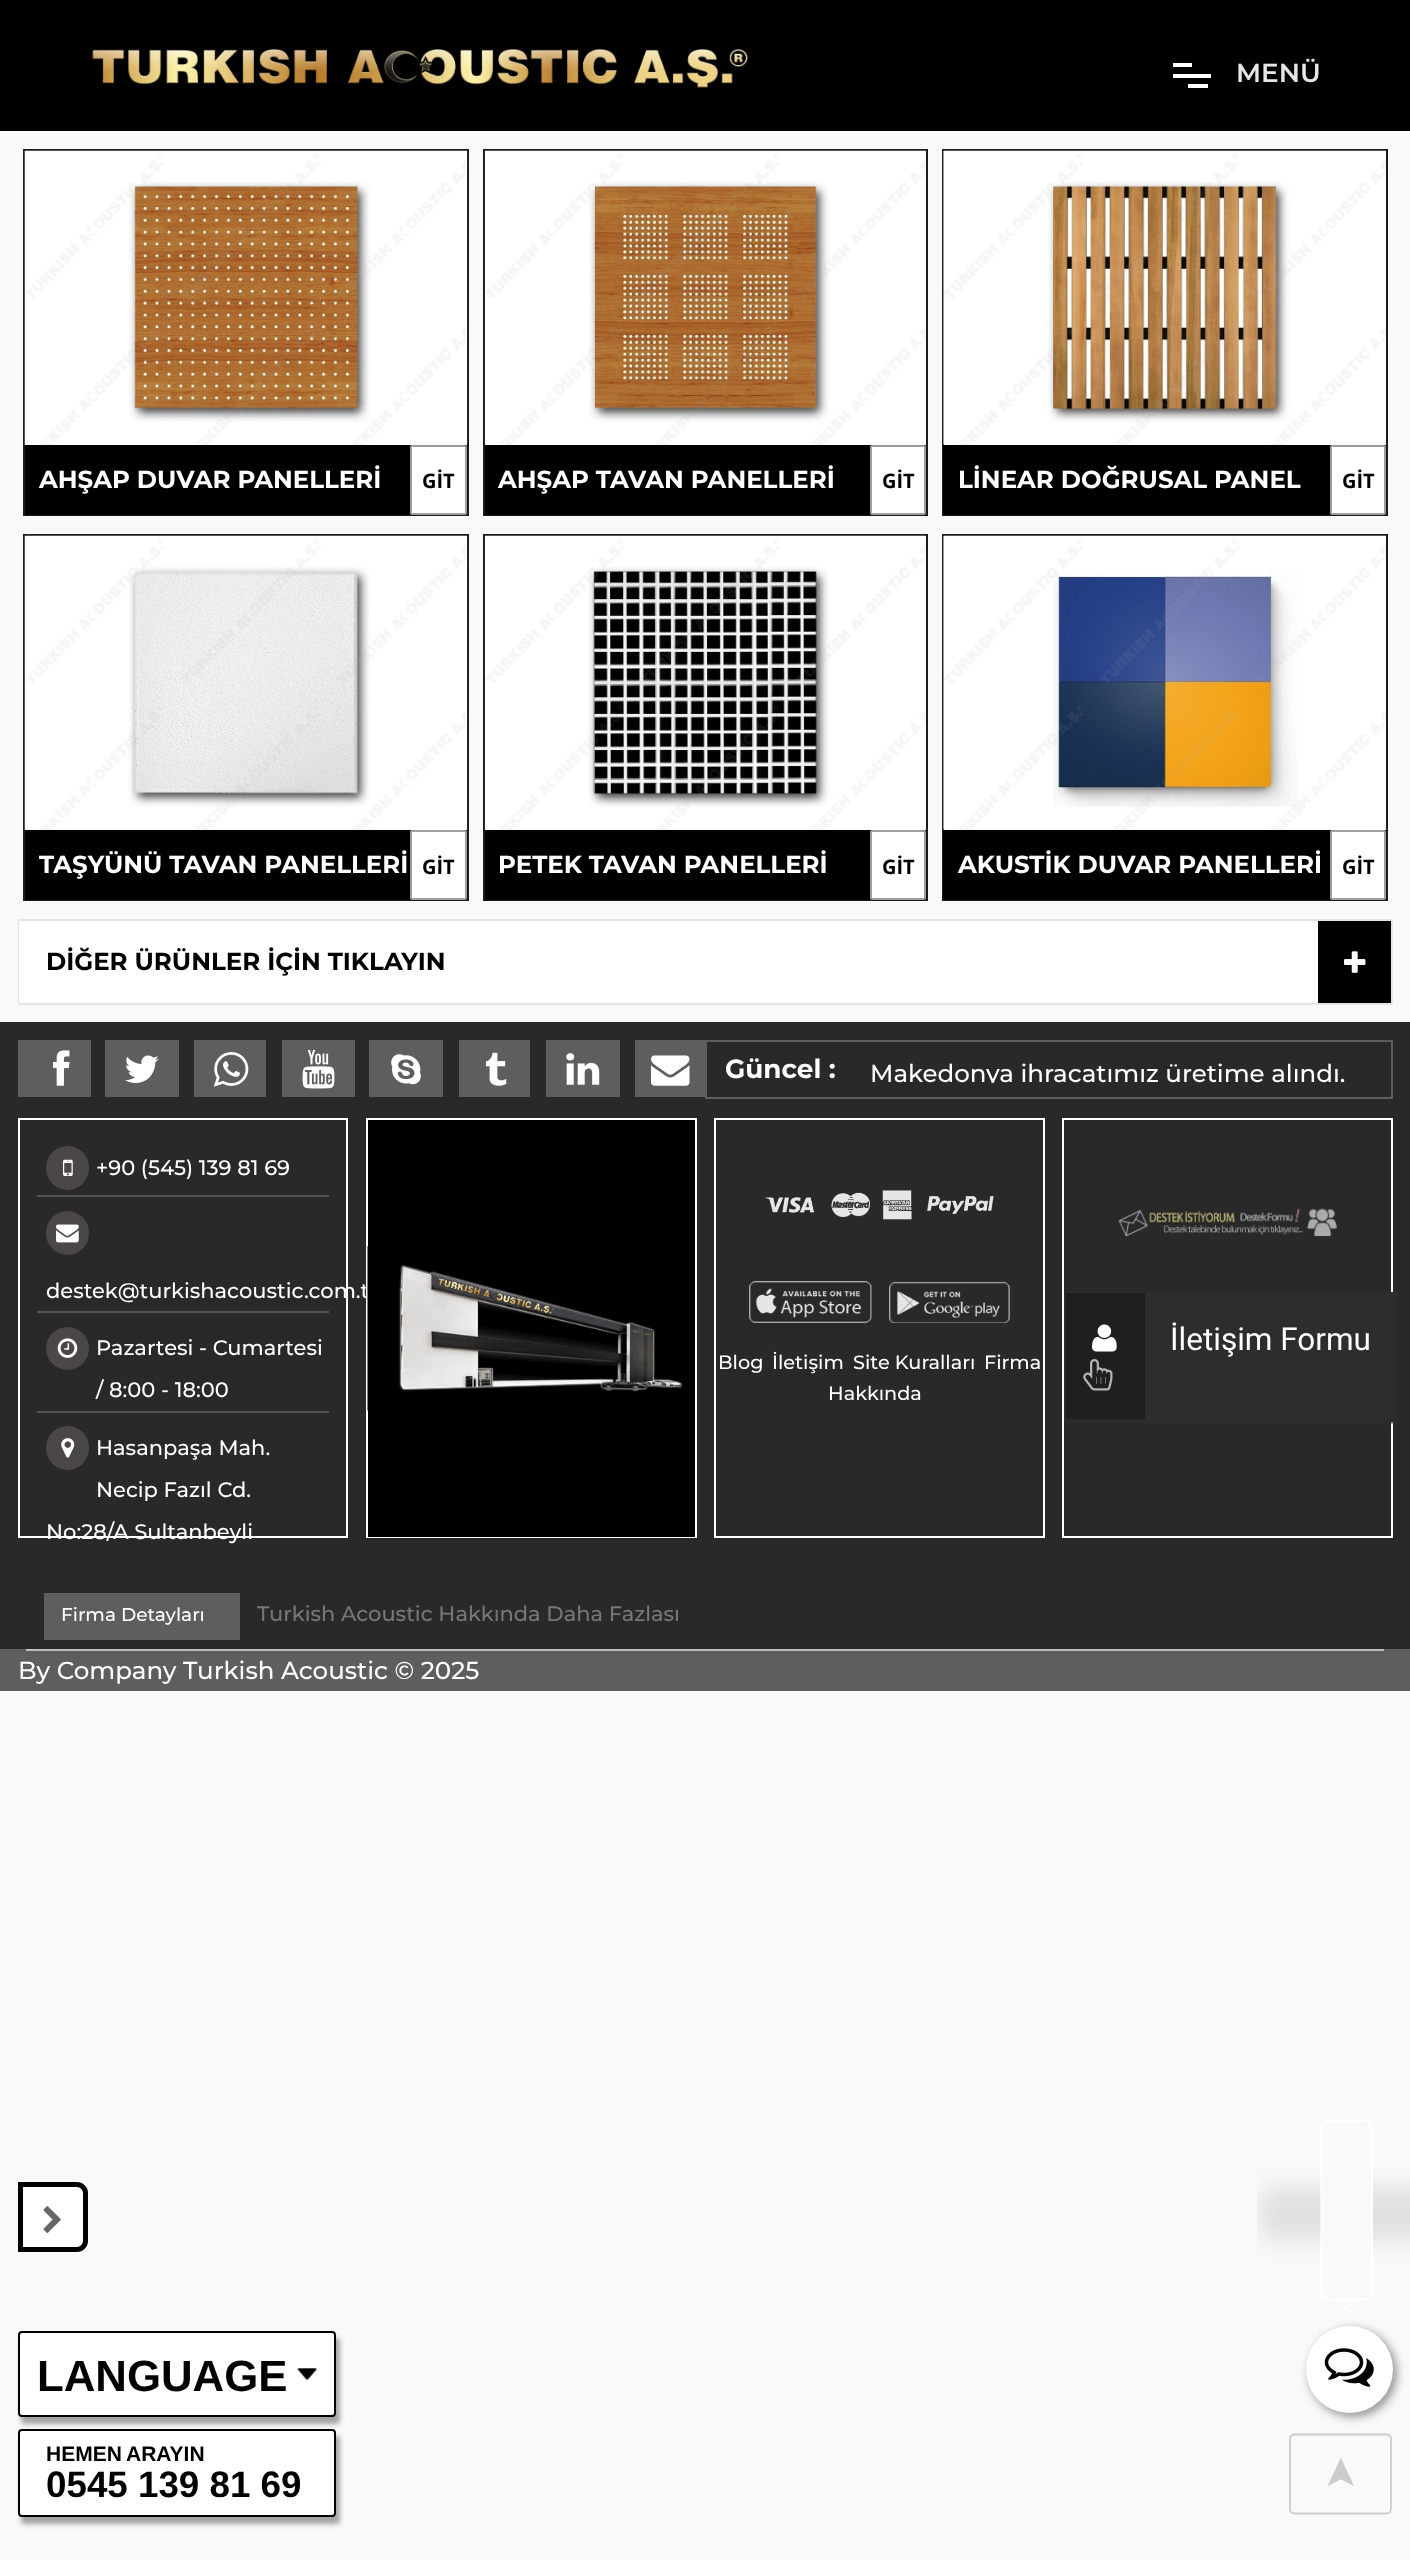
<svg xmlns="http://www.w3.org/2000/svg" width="1410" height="2560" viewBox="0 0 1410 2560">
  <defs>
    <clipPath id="clip1"><rect x="870" y="1050" width="492" height="33"/></clipPath>
    <filter id="blur1" x="-50%" y="-200%" width="200%" height="500%"><feGaussianBlur stdDeviation="1"/></filter>
    <filter id="blur2" x="-50%" y="-200%" width="200%" height="500%"><feGaussianBlur stdDeviation="2.5"/></filter>
    <clipPath id="clip2"><rect x="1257" y="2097" width="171" height="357"/></clipPath>
    <clipPath id="clip3"><path d="M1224 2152H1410V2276H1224ZM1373 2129V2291.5C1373 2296.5 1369 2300.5 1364 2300.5H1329C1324.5 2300.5 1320.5 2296.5 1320.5 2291.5V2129C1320.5 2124 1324.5 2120 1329 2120H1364C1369 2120 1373 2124 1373 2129Z" clip-rule="evenodd"/></clipPath>
    <filter id="blur3" x="-50%" y="-200%" width="200%" height="500%"><feGaussianBlur stdDeviation="11.5"/></filter>
    <filter id="blur4" x="-50%" y="-200%" width="200%" height="500%"><feGaussianBlur stdDeviation="5"/></filter>
  </defs>
  <rect width="100%" height="100%" fill="#f9f9f9"/>
  <rect x="0" y="0" width="1410" height="131" fill="#000000"/>
  <image x="92" y="49" width="656" height="39" href="img1.png"/>
  <rect x="1173" y="63" width="19" height="4" fill="#ffffff"/>
  <rect x="1173" y="74" width="38" height="4" fill="#ffffff"/>
  <rect x="1188" y="84" width="20" height="4" fill="#ffffff"/>
  <text x="1236" y="82" font-family="Montserrat" font-size="26.25" font-weight="600" fill="#e6e6e6">MENÜ</text>
  <rect x="24" y="150" width="444" height="365" fill="none" stroke="#1c1c1c" stroke-width="2"/>
  <image x="24" y="150" width="444" height="295" href="img2.png"/>
  <rect x="25" y="445" width="442" height="70" fill="#000000"/>
  <text x="39" y="488" font-family="Montserrat" font-size="24.5" font-weight="bold" fill="#ffffff">AHŞAP DUVAR PANELLERİ</text>
  <rect x="411" y="446" width="55" height="68" rx="1" fill="#ffffff" stroke="#9e9e9e" stroke-width="2"/>
  <text x="422" y="488" font-family="Open Sans" font-size="20" font-weight="bold" fill="#000000">GİT</text>
  <rect x="484" y="150" width="443" height="365" fill="none" stroke="#1c1c1c" stroke-width="2"/>
  <image x="484" y="150" width="442" height="295" href="img3.png"/>
  <rect x="485" y="445" width="441" height="70" fill="#000000"/>
  <text x="498" y="488" font-family="Montserrat" font-size="24.5" font-weight="bold" fill="#ffffff">AHŞAP TAVAN PANELLERİ</text>
  <rect x="871" y="446" width="54" height="68" rx="1" fill="#ffffff" stroke="#9e9e9e" stroke-width="2"/>
  <text x="882" y="488" font-family="Open Sans" font-size="20" font-weight="bold" fill="#000000">GİT</text>
  <rect x="943" y="150" width="444" height="365" fill="none" stroke="#1c1c1c" stroke-width="2"/>
  <image x="943" y="150" width="443" height="295" href="img4.png"/>
  <rect x="943" y="445" width="443" height="70" fill="#000000"/>
  <text x="958" y="488" font-family="Montserrat" font-size="24.5" font-weight="bold" fill="#ffffff">LİNEAR DOĞRUSAL PANEL</text>
  <rect x="1331" y="446" width="54" height="68" rx="1" fill="#ffffff" stroke="#9e9e9e" stroke-width="2"/>
  <text x="1342" y="488" font-family="Open Sans" font-size="20" font-weight="bold" fill="#000000">GİT</text>
  <rect x="24" y="535" width="444" height="365" fill="none" stroke="#1c1c1c" stroke-width="2"/>
  <image x="24" y="535" width="444" height="295" href="img5.png"/>
  <rect x="25" y="830" width="442" height="70" fill="#000000"/>
  <text x="39" y="873" font-family="Montserrat" font-size="24.5" font-weight="bold" fill="#ffffff">TAŞYÜNÜ TAVAN PANELLERİ</text>
  <rect x="411" y="831" width="55" height="68" rx="1" fill="#ffffff" stroke="#9e9e9e" stroke-width="2"/>
  <text x="422" y="874" font-family="Open Sans" font-size="20" font-weight="bold" fill="#000000">GİT</text>
  <rect x="484" y="535" width="443" height="365" fill="none" stroke="#1c1c1c" stroke-width="2"/>
  <image x="484" y="535" width="442" height="295" href="img6.png"/>
  <rect x="485" y="830" width="441" height="70" fill="#000000"/>
  <text x="498" y="873" font-family="Montserrat" font-size="24.5" font-weight="bold" fill="#ffffff">PETEK TAVAN PANELLERİ</text>
  <rect x="871" y="831" width="54" height="68" rx="1" fill="#ffffff" stroke="#9e9e9e" stroke-width="2"/>
  <text x="882" y="874" font-family="Open Sans" font-size="20" font-weight="bold" fill="#000000">GİT</text>
  <rect x="943" y="535" width="444" height="365" fill="none" stroke="#1c1c1c" stroke-width="2"/>
  <image x="943" y="535" width="443" height="295" href="img7.png"/>
  <rect x="943" y="830" width="443" height="70" fill="#000000"/>
  <text x="958" y="873" font-family="Montserrat" font-size="24.5" font-weight="bold" fill="#ffffff">AKUSTİK DUVAR PANELLERİ</text>
  <rect x="1331" y="831" width="54" height="68" rx="1" fill="#ffffff" stroke="#9e9e9e" stroke-width="2"/>
  <text x="1342" y="874" font-family="Open Sans" font-size="20" font-weight="bold" fill="#000000">GİT</text>
  <rect x="19" y="920" width="1373" height="84" fill="none" stroke="#e5e5e5" stroke-width="2"/>
  <rect x="19" y="921" width="1299" height="82" fill="#ffffff"/>
  <text x="46" y="970" font-family="Montserrat" font-size="24.5" font-weight="bold" fill="#000000">DİĞER ÜRÜNLER İÇİN TIKLAYIN</text>
  <rect x="1318" y="921" width="73" height="82" fill="#000000"/>
  <image x="1344" y="951" width="22" height="22" href="img8.png"/>
  <path d="M20.5 2184.5H77C81.5 2184.5 85.5 2188.5 85.5 2193V2241C85.5 2245.5 81.5 2249.5 77 2249.5H20.5Z" fill="#ffffff" stroke="#000000" stroke-width="5"/>
  <image x="43" y="2206" width="18" height="27" href="img9.png"/>
  <rect x="0" y="1022" width="1410" height="627" fill="#292929"/>
  <rect x="18" y="1040" width="73" height="57" fill="#5f5d5d"/>
  <image x="53" y="1050" width="17" height="36" href="img10.png"/>
  <rect x="105" y="1040" width="74" height="57" fill="#5f5d5d"/>
  <image x="125" y="1055" width="34" height="28" href="img11.png"/>
  <rect x="194" y="1040" width="72" height="57" fill="#5f5d5d"/>
  <image x="213" y="1052" width="36" height="35" href="img12.png"/>
  <rect x="282" y="1040" width="73" height="57" fill="#5f5d5d"/>
  <image x="302" y="1050" width="33" height="39" href="img13.png"/>
  <rect x="369" y="1040" width="74" height="57" fill="#5f5d5d"/>
  <image x="391" y="1054" width="30" height="31" href="img14.png"/>
  <rect x="459" y="1040" width="71" height="57" fill="#5f5d5d"/>
  <image x="485" y="1052" width="22" height="34" href="img15.png"/>
  <rect x="546" y="1040" width="74" height="57" fill="#5f5d5d"/>
  <image x="566" y="1053" width="34" height="32" href="img16.png"/>
  <rect x="635" y="1040" width="70" height="57" fill="#5f5d5d"/>
  <image x="651" y="1055" width="39" height="31" href="img17.png"/>
  <rect x="706" y="1041" width="686" height="57" fill="none" stroke="#5f5d5d" stroke-width="2"/>
  <text x="725" y="1078" font-family="Montserrat" font-size="26.25" font-weight="bold" fill="#ffffff">Güncel :</text>
  <g clip-path="url(#clip1)">
    <text x="870" y="1082" font-family="Montserrat" font-size="24.5" font-weight="500" fill="#ffffff">Makedonya ihracatımız üretime alındı.</text>
  </g>
  <rect x="19" y="1119" width="328" height="418" fill="none" stroke="#ffffff" stroke-width="2"/>
  <rect x="37" y="1195" width="292" height="2" fill="#545454"/>
  <rect x="46" y="1146" width="43" height="44" rx="21.5" fill="#4c4747"/>
  <image x="63" y="1159" width="10" height="17" href="img18.png"/>
  <text x="96" y="1175" font-family="Montserrat" font-size="21" font-weight="500" fill="#ffffff">+90 (545) 139 81 69</text>
  <rect x="37" y="1311" width="292" height="2" fill="#545454"/>
  <rect x="46" y="1211" width="43" height="44" rx="21.5" fill="#4c4747"/>
  <image x="56" y="1224" width="23" height="19" href="img19.png"/>
  <text x="46" y="1298" font-family="Montserrat" font-size="21" font-weight="500" fill="#ffffff">destek@turkishacoustic.com.t</text>
  <rect x="37" y="1411" width="292" height="2" fill="#545454"/>
  <circle cx="67.5" cy="1348.5" r="21.5" fill="#4c4747"/>
  <image x="57" y="1338" width="21" height="20" href="img20.png"/>
  <text x="96" y="1355" font-family="Montserrat" font-size="21" font-weight="500" fill="#ffffff">Pazartesi - Cumartesi</text>
  <text x="96" y="1397" font-family="Montserrat" font-size="21" font-weight="500" fill="#ffffff">/ 8:00 - 18:00</text>
  <rect x="46" y="1426" width="43" height="44" rx="21.5" fill="#4c4747"/>
  <image x="61" y="1438" width="14" height="20" href="img21.png"/>
  <text x="96" y="1455" font-family="Montserrat" font-size="21" font-weight="500" fill="#ffffff">Hasanpaşa Mah.</text>
  <text x="96" y="1497" font-family="Montserrat" font-size="21" font-weight="500" fill="#ffffff">Necip Fazıl Cd.</text>
  <text x="46" y="1539" font-family="Montserrat" font-size="21" font-weight="500" fill="#ffffff">No:28/A Sultanbeyli</text>
  <rect x="367" y="1119" width="329" height="418" fill="none" stroke="#ffffff" stroke-width="2"/>
  <rect x="368" y="1120" width="327" height="417" fill="#000000"/>
  <image x="367" y="1246" width="316" height="165" href="img22.png"/>
  <rect x="1063" y="1119" width="329" height="418" fill="none" stroke="#ffffff" stroke-width="2"/>
  <image x="1118" y="1208" width="219" height="29" href="img23.png"/>
  <rect x="1066" y="1293" width="331" height="130" fill="#2d2d2d" filter="url(#blur1)"/>
  <rect x="1064" y="1292" width="331" height="129" fill="#2d2d2d"/>
  <rect x="1066" y="1293" width="79" height="126" fill="#1f1f1f"/>
  <image x="1092" y="1324" width="25" height="28" href="img24.png"/>
  <text x="1170" y="1350" font-family="Roboto" font-size="31.5" fill="#ffffff">İletişim Formu</text>
  <image x="1083" y="1359" width="30" height="32" href="img25.png"/>
  <rect x="715" y="1119" width="329" height="418" fill="none" stroke="#ffffff" stroke-width="2"/>
  <image x="765" y="1190" width="229" height="30" href="img26.png"/>
  <image x="749" y="1281" width="123" height="42" href="img27.png"/>
  <image x="889" y="1281" width="121" height="42" href="img28.png"/>
  <text x="718" y="1369" font-family="Montserrat" font-size="19.25" font-weight="500" fill="#ffffff">Blog</text>
  <text x="772" y="1369" font-family="Montserrat" font-size="19.25" font-weight="500" fill="#ffffff">İletişim</text>
  <text x="853" y="1369" font-family="Montserrat" font-size="19.25" font-weight="500" fill="#ffffff">Site Kuralları</text>
  <text x="984" y="1369" font-family="Montserrat" font-size="19.25" font-weight="500" fill="#ffffff">Firma</text>
  <text x="828" y="1400" font-family="Montserrat" font-size="19.25" font-weight="500" fill="#ffffff">Hakkında</text>
  <rect x="44" y="1593" width="196" height="47" fill="#5f5d5d"/>
  <text x="61" y="1621" font-family="Montserrat" font-size="18.5" font-weight="500" fill="#ffffff">Firma Detayları</text>
  <text x="257" y="1621" font-family="Montserrat" font-size="21" font-weight="500" fill="#777777">Turkish Acoustic Hakkında Daha Fazlası</text>
  <rect x="21" y="2436" width="319" height="88" rx="4" fill="#0c0000" fill-opacity="0.35" filter="url(#blur2)"/>
  <rect x="19" y="2430" width="316" height="86" rx="3" fill="#ffffff" stroke="#000000" stroke-width="2"/>
  <rect x="21" y="2338" width="319" height="86" rx="4" fill="#0c0000" fill-opacity="0.35" filter="url(#blur2)"/>
  <rect x="19" y="2332" width="316" height="84" rx="3" fill="#ffffff" stroke="#000000" stroke-width="2"/>
  <image x="297" y="2368" width="20" height="12" href="img29.png"/>
  <text x="37" y="2391" font-family="Liberation Sans" font-size="43.75" font-weight="bold" fill="#000000">LANGUAGE</text>
  <g clip-path="url(#clip2)">
    <g clip-path="url(#clip3)">
      <rect x="1260" y="2188" width="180" height="52" rx="9" fill="#000000" fill-opacity="0.1" filter="url(#blur3)"/>
    </g>
  </g>
  <path d="M1372 2129V2291.5C1372 2296 1368.5 2299.5 1364 2299.5H1329C1325 2299.5 1321.5 2296 1321.5 2291.5V2129C1321.5 2124.5 1325 2121 1329 2121H1364C1368.5 2121 1372 2124.5 1372 2129Z" fill="none" stroke="#ffffff" stroke-width="1.8"/>
  <path d="M1355.5 2299L1356.5 2300.5L1346.5 2310L1345.5 2309Z" fill="#ffffff"/>
  <path d="M1338 2299L1348 2309L1346.5 2310L1337 2300.5Z" fill="#ffffff"/>
  <rect x="1309" y="2329" width="88" height="88" rx="44" fill="#000000" fill-opacity="0.4" filter="url(#blur4)"/>
  <circle cx="1349.5" cy="2369.5" r="43.5" fill="#ffffff"/>
  <image x="1324" y="2348" width="50" height="39" href="img30.png"/>
  <text x="46" y="2461" font-family="Liberation Sans" font-size="21" font-weight="bold" fill="#000000">HEMEN</text>
  <text x="126" y="2461" font-family="Liberation Sans" font-size="21" font-weight="bold" fill="#000000">ARAYIN</text>
  <text x="46" y="2497" font-family="Liberation Sans" font-size="36.75" font-weight="bold" fill="#000000">0545 139 81 69</text>
  <rect x="0" y="1649" width="1410" height="42" fill="#5f5d5d"/>
  <rect x="26" y="1649" width="1358" height="2" fill="#bebebe"/>
  <text x="18" y="1679" font-family="Montserrat" font-size="24.5" font-weight="500" fill="#ffffff">By Company Turkish Acoustic © 2025</text>
  <path d="M1290 2509V2438.5C1290 2436.5 1292 2434.5 1294 2434.5H1386.5C1389 2434.5 1391 2436.5 1391 2438.5V2509C1391 2511.5 1389 2513.5 1386.5 2513.5H1294C1292 2513.5 1290 2511.5 1290 2509Z" fill="none" stroke="#cccccc" stroke-width="1.8"/>
  <text x="1354" y="2491" transform="rotate(-90 1354 2491)" font-family="DejaVu Sans" font-size="42" fill="#cccccc">➤</text>
</svg>
